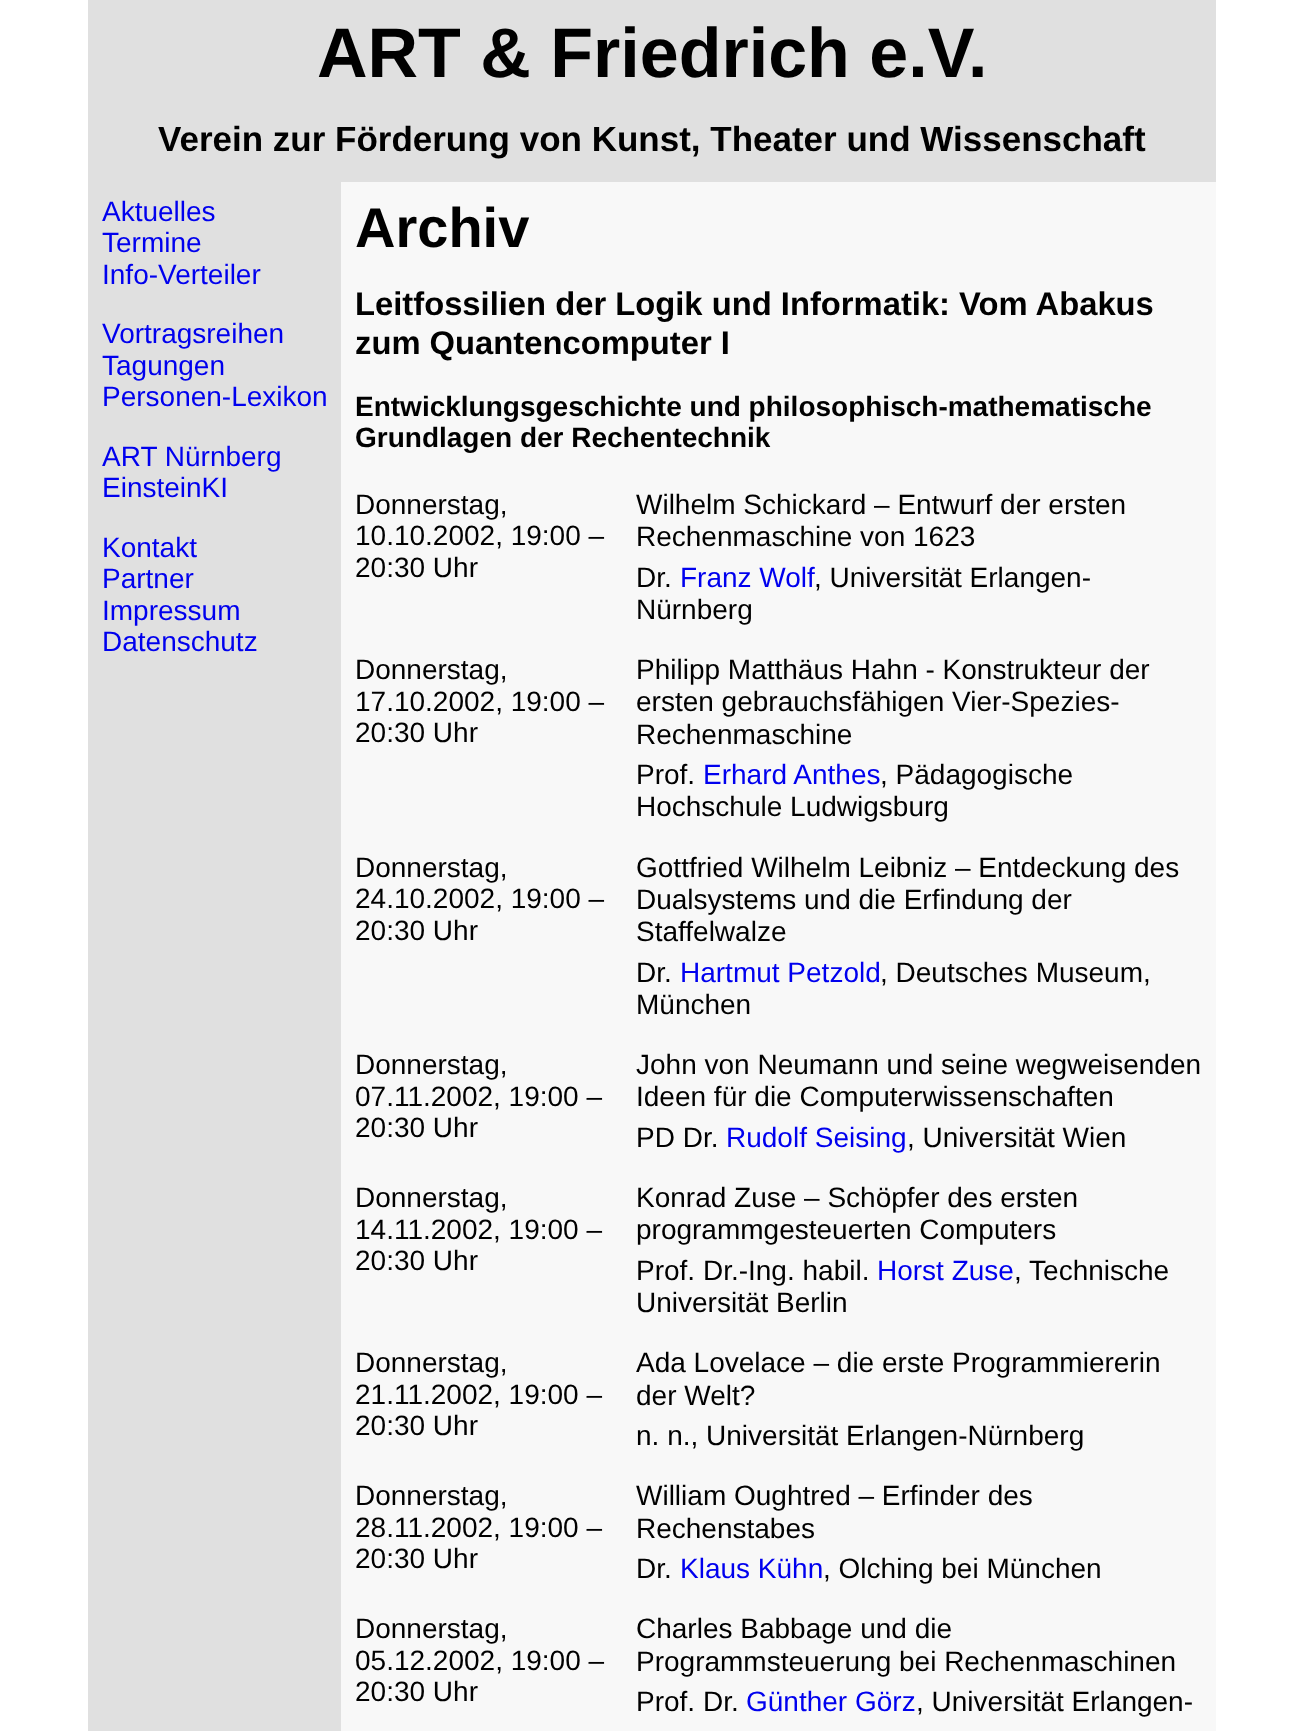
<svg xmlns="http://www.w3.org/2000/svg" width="1303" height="1731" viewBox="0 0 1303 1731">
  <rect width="100%" height="100%" fill="#ffffff"/>
  <rect x="341" y="182" width="875" height="1549" fill="#f8f8f8"/>
  <rect x="88" y="0" width="1128" height="182" fill="#e0e0e0"/>
  <text x="317" y="77" font-family="Liberation Sans" font-size="70" font-weight="bold" fill="#000000">ART &amp; Friedrich e.V.</text>
  <text x="158" y="151" font-family="Liberation Sans" font-size="35" font-weight="bold" fill="#000000">Verein zur Förderung von Kunst, Theater und Wissenschaft</text>
  <rect x="88" y="182" width="253" height="1549" fill="#e0e0e0"/>
  <text x="102" y="221" font-family="Liberation Sans" font-size="28" fill="#0000ee">Aktuelles</text>
  <text x="102" y="252" font-family="Liberation Sans" font-size="28" fill="#0000ee">Termine</text>
  <text x="102" y="284" font-family="Liberation Sans" font-size="28" fill="#0000ee">Info-Verteiler</text>
  <text x="102" y="343" font-family="Liberation Sans" font-size="28" fill="#0000ee">Vortragsreihen</text>
  <text x="102" y="375" font-family="Liberation Sans" font-size="28" fill="#0000ee">Tagungen</text>
  <text x="102" y="406" font-family="Liberation Sans" font-size="28" fill="#0000ee">Personen-Lexikon</text>
  <text x="102" y="466" font-family="Liberation Sans" font-size="28" fill="#0000ee">ART Nürnberg</text>
  <text x="102" y="497" font-family="Liberation Sans" font-size="28" fill="#0000ee">EinsteinKI</text>
  <text x="102" y="557" font-family="Liberation Sans" font-size="28" fill="#0000ee">Kontakt</text>
  <text x="102" y="588" font-family="Liberation Sans" font-size="28" fill="#0000ee">Partner</text>
  <text x="102" y="620" font-family="Liberation Sans" font-size="28" fill="#0000ee">Impressum</text>
  <text x="102" y="651" font-family="Liberation Sans" font-size="28" fill="#0000ee">Datenschutz</text>
  <text x="355" y="247" font-family="Liberation Sans" font-size="56" font-weight="bold" fill="#000000">Archiv</text>
  <text x="355" y="315" font-family="Liberation Sans" font-size="32.75" font-weight="bold" fill="#000000">Leitfossilien der Logik und Informatik: Vom Abakus</text>
  <text x="355" y="354" font-family="Liberation Sans" font-size="32.75" font-weight="bold" fill="#000000">zum Quantencomputer I</text>
  <text x="355" y="416" font-family="Liberation Sans" font-size="28" font-weight="bold" fill="#000000">Entwicklungsgeschichte und philosophisch-mathematische</text>
  <text x="355" y="447" font-family="Liberation Sans" font-size="28" font-weight="bold" fill="#000000">Grundlagen der Rechentechnik</text>
  <text x="355" y="514" font-family="Liberation Sans" font-size="28" fill="#000000">Donnerstag,</text>
  <text x="355" y="545" font-family="Liberation Sans" font-size="28" fill="#000000">10.10.2002, 19:00 –</text>
  <text x="355" y="577" font-family="Liberation Sans" font-size="28" fill="#000000">20:30 Uhr</text>
  <text x="636" y="514" font-family="Liberation Sans" font-size="28" fill="#000000">Wilhelm Schickard – Entwurf der ersten</text>
  <text x="636" y="546" font-family="Liberation Sans" font-size="28" fill="#000000">Rechenmaschine von 1623</text>
  <text x="636" y="587" font-family="Liberation Sans" font-size="28" fill="#000000">Dr.</text>
  <text x="680" y="587" font-family="Liberation Sans" font-size="28" fill="#0000ee">Franz Wolf</text>
  <text x="814" y="587" font-family="Liberation Sans" font-size="28" fill="#000000">, Universität Erlangen-</text>
  <text x="636" y="619" font-family="Liberation Sans" font-size="28" fill="#000000">Nürnberg</text>
  <text x="355" y="679" font-family="Liberation Sans" font-size="28" fill="#000000">Donnerstag,</text>
  <text x="355" y="711" font-family="Liberation Sans" font-size="28" fill="#000000">17.10.2002, 19:00 –</text>
  <text x="355" y="742" font-family="Liberation Sans" font-size="28" fill="#000000">20:30 Uhr</text>
  <text x="636" y="679" font-family="Liberation Sans" font-size="28" fill="#000000">Philipp Matthäus Hahn - Konstrukteur der</text>
  <text x="636" y="711" font-family="Liberation Sans" font-size="28" fill="#000000">ersten gebrauchsfähigen Vier-Spezies-</text>
  <text x="636" y="744" font-family="Liberation Sans" font-size="28" fill="#000000">Rechenmaschine</text>
  <text x="636" y="784" font-family="Liberation Sans" font-size="28" fill="#000000">Prof.</text>
  <text x="703" y="784" font-family="Liberation Sans" font-size="28" fill="#0000ee">Erhard Anthes</text>
  <text x="880" y="784" font-family="Liberation Sans" font-size="28" fill="#000000">, Pädagogische</text>
  <text x="636" y="816" font-family="Liberation Sans" font-size="28" fill="#000000">Hochschule Ludwigsburg</text>
  <text x="355" y="877" font-family="Liberation Sans" font-size="28" fill="#000000">Donnerstag,</text>
  <text x="355" y="908" font-family="Liberation Sans" font-size="28" fill="#000000">24.10.2002, 19:00 –</text>
  <text x="355" y="940" font-family="Liberation Sans" font-size="28" fill="#000000">20:30 Uhr</text>
  <text x="636" y="877" font-family="Liberation Sans" font-size="28" fill="#000000">Gottfried Wilhelm Leibniz – Entdeckung des</text>
  <text x="636" y="909" font-family="Liberation Sans" font-size="28" fill="#000000">Dualsystems und die Erfindung der</text>
  <text x="636" y="941" font-family="Liberation Sans" font-size="28" fill="#000000">Staffelwalze</text>
  <text x="636" y="982" font-family="Liberation Sans" font-size="28" fill="#000000">Dr.</text>
  <text x="680" y="982" font-family="Liberation Sans" font-size="28" fill="#0000ee">Hartmut Petzold</text>
  <text x="880" y="982" font-family="Liberation Sans" font-size="28" fill="#000000">, Deutsches Museum,</text>
  <text x="636" y="1014" font-family="Liberation Sans" font-size="28" fill="#000000">München</text>
  <text x="355" y="1074" font-family="Liberation Sans" font-size="28" fill="#000000">Donnerstag,</text>
  <text x="355" y="1106" font-family="Liberation Sans" font-size="28" fill="#000000">07.11.2002, 19:00 –</text>
  <text x="355" y="1137" font-family="Liberation Sans" font-size="28" fill="#000000">20:30 Uhr</text>
  <text x="636" y="1074" font-family="Liberation Sans" font-size="28" fill="#000000">John von Neumann und seine wegweisenden</text>
  <text x="636" y="1106" font-family="Liberation Sans" font-size="28" fill="#000000">Ideen für die Computerwissenschaften</text>
  <text x="636" y="1147" font-family="Liberation Sans" font-size="28" fill="#000000">PD Dr.</text>
  <text x="726" y="1147" font-family="Liberation Sans" font-size="28" fill="#0000ee">Rudolf Seising</text>
  <text x="907" y="1147" font-family="Liberation Sans" font-size="28" fill="#000000">, Universität Wien</text>
  <text x="355" y="1207" font-family="Liberation Sans" font-size="28" fill="#000000">Donnerstag,</text>
  <text x="355" y="1239" font-family="Liberation Sans" font-size="28" fill="#000000">14.11.2002, 19:00 –</text>
  <text x="355" y="1270" font-family="Liberation Sans" font-size="28" fill="#000000">20:30 Uhr</text>
  <text x="636" y="1207" font-family="Liberation Sans" font-size="28" fill="#000000">Konrad Zuse – Schöpfer des ersten</text>
  <text x="636" y="1239" font-family="Liberation Sans" font-size="28" fill="#000000">programmgesteuerten Computers</text>
  <text x="636" y="1280" font-family="Liberation Sans" font-size="28" fill="#000000">Prof. Dr.-Ing. habil.</text>
  <text x="877" y="1280" font-family="Liberation Sans" font-size="28" fill="#0000ee">Horst Zuse</text>
  <text x="1014" y="1280" font-family="Liberation Sans" font-size="28" fill="#000000">, Technische</text>
  <text x="636" y="1312" font-family="Liberation Sans" font-size="28" fill="#000000">Universität Berlin</text>
  <text x="355" y="1372" font-family="Liberation Sans" font-size="28" fill="#000000">Donnerstag,</text>
  <text x="355" y="1404" font-family="Liberation Sans" font-size="28" fill="#000000">21.11.2002, 19:00 –</text>
  <text x="355" y="1435" font-family="Liberation Sans" font-size="28" fill="#000000">20:30 Uhr</text>
  <text x="636" y="1372" font-family="Liberation Sans" font-size="28" fill="#000000">Ada Lovelace – die erste Programmiererin</text>
  <text x="636" y="1405" font-family="Liberation Sans" font-size="28" fill="#000000">der Welt?</text>
  <text x="636" y="1445" font-family="Liberation Sans" font-size="28" fill="#000000">n. n., Universität Erlangen-Nürnberg</text>
  <text x="355" y="1505" font-family="Liberation Sans" font-size="28" fill="#000000">Donnerstag,</text>
  <text x="355" y="1537" font-family="Liberation Sans" font-size="28" fill="#000000">28.11.2002, 19:00 –</text>
  <text x="355" y="1568" font-family="Liberation Sans" font-size="28" fill="#000000">20:30 Uhr</text>
  <text x="636" y="1505" font-family="Liberation Sans" font-size="28" fill="#000000">William Oughtred – Erfinder des</text>
  <text x="636" y="1538" font-family="Liberation Sans" font-size="28" fill="#000000">Rechenstabes</text>
  <text x="636" y="1578" font-family="Liberation Sans" font-size="28" fill="#000000">Dr.</text>
  <text x="680" y="1578" font-family="Liberation Sans" font-size="28" fill="#0000ee">Klaus Kühn</text>
  <text x="823" y="1578" font-family="Liberation Sans" font-size="28" fill="#000000">, Olching bei München</text>
  <text x="355" y="1638" font-family="Liberation Sans" font-size="28" fill="#000000">Donnerstag,</text>
  <text x="355" y="1670" font-family="Liberation Sans" font-size="28" fill="#000000">05.12.2002, 19:00 –</text>
  <text x="355" y="1701" font-family="Liberation Sans" font-size="28" fill="#000000">20:30 Uhr</text>
  <text x="636" y="1638" font-family="Liberation Sans" font-size="28" fill="#000000">Charles Babbage und die</text>
  <text x="636" y="1671" font-family="Liberation Sans" font-size="28" fill="#000000">Programmsteuerung bei Rechenmaschinen</text>
  <text x="636" y="1711" font-family="Liberation Sans" font-size="28" fill="#000000">Prof. Dr.</text>
  <text x="746" y="1711" font-family="Liberation Sans" font-size="28" fill="#0000ee">Günther Görz</text>
  <text x="916" y="1711" font-family="Liberation Sans" font-size="28" fill="#000000">, Universität Erlangen-</text>
</svg>
